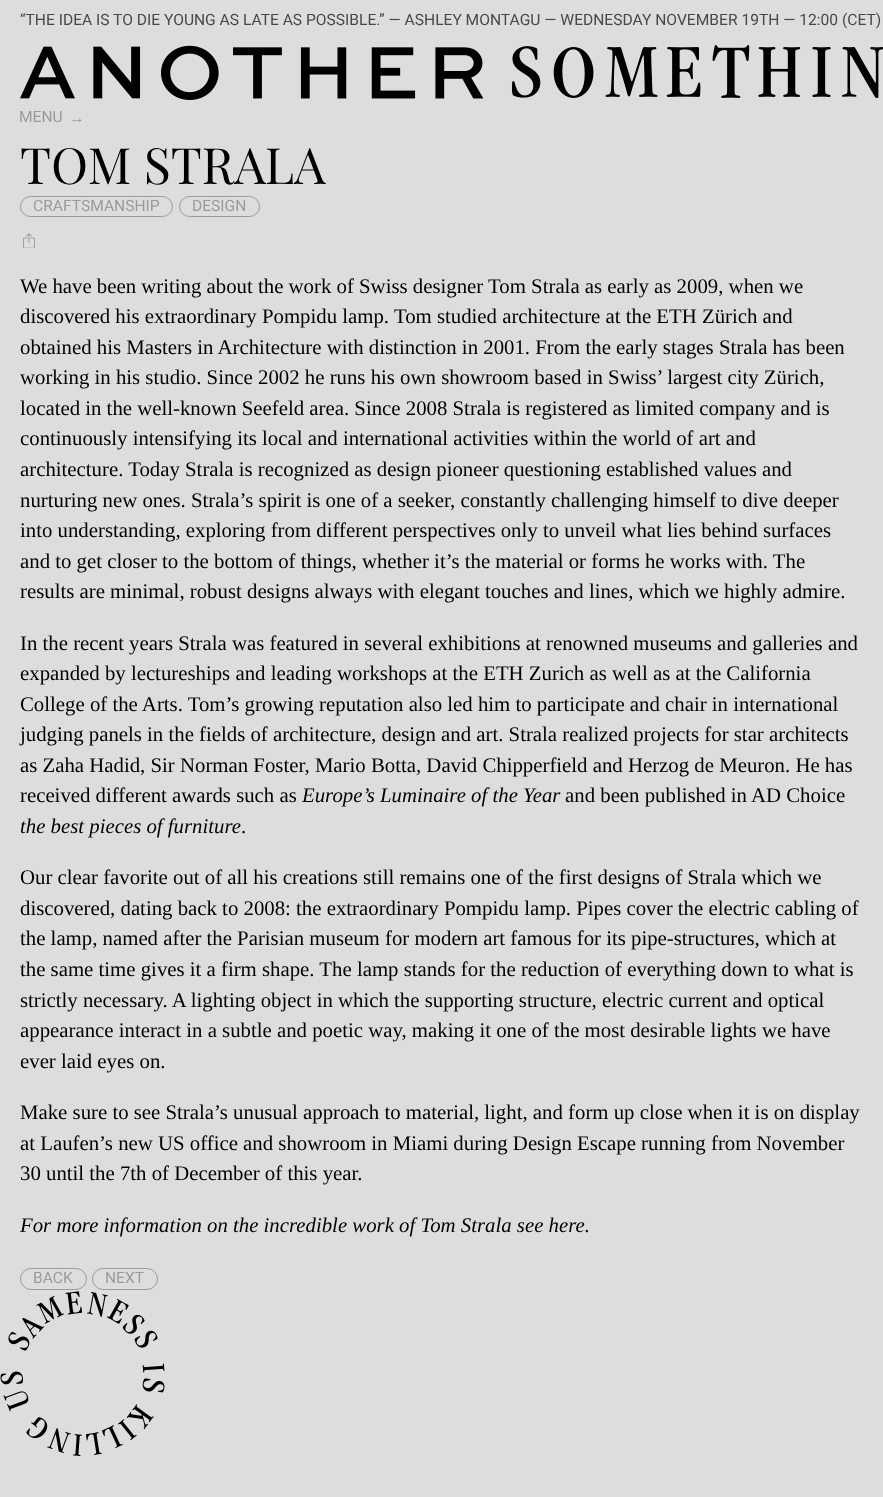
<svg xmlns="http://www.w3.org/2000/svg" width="883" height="1497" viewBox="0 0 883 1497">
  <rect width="100%" height="100%" fill="#dddddd"/>
  <text x="20" y="25" font-family="Roboto" font-size="15.6" fill="#484848">“THE IDEA IS TO DIE YOUNG AS LATE AS POSSIBLE.” — ASHLEY MONTAGU — WEDNESDAY NOVEMBER 19TH — 12:00 (CET)</text>
  <image x="20" y="45" width="863" height="55" href="img1.png"/>
  <text x="19" y="122" font-family="Roboto" font-size="15.6" fill="#9b9b9b">MENU</text>
  <text x="69" y="123" font-family="Liberation Serif" font-size="15.6" fill="#9b9b9b">→</text>
  <text x="20" y="184" font-family="Playfair Display" font-size="50" fill="#000000">TOM STRALA</text>
  <rect x="20.5" y="196.5" width="152" height="20" rx="10" fill="none" stroke="#9b9b9b"/>
  <text x="33" y="211" font-family="Roboto" font-size="15.6" fill="#9b9b9b">CRAFTSMANSHIP</text>
  <rect x="179.5" y="196.5" width="80" height="20" rx="10" fill="none" stroke="#9b9b9b"/>
  <text x="192" y="211" font-family="Roboto" font-size="15.6" fill="#9b9b9b">DESIGN</text>
  <image x="23" y="233" width="12" height="15" href="img2.png"/>
  <text x="20" y="293" font-family="Liberation Serif" font-size="20.8" fill="#000000">We have been writing about the work of Swiss designer Tom Strala as early as 2009, when we</text>
  <text x="20" y="323" font-family="Liberation Serif" font-size="20.8" fill="#000000">discovered his extraordinary Pompidu lamp. Tom studied architecture at the ETH Zürich and</text>
  <text x="20" y="354" font-family="Liberation Serif" font-size="20.8" fill="#000000">obtained his Masters in Architecture with distinction in 2001. From the early stages Strala has been</text>
  <text x="20" y="384" font-family="Liberation Serif" font-size="20.8" fill="#000000">working in his studio. Since 2002 he runs his own showroom based in Swiss’ largest city Zürich,</text>
  <text x="20" y="415" font-family="Liberation Serif" font-size="20.8" fill="#000000">located in the well-known Seefeld area. Since 2008 Strala is registered as limited company and is</text>
  <text x="20" y="445" font-family="Liberation Serif" font-size="20.8" fill="#000000">continuously intensifying its local and international activities within the world of art and</text>
  <text x="20" y="476" font-family="Liberation Serif" font-size="20.8" fill="#000000">architecture. Today Strala is recognized as design pioneer questioning established values and</text>
  <text x="20" y="507" font-family="Liberation Serif" font-size="20.8" fill="#000000">nurturing new ones. Strala’s spirit is one of a seeker, constantly challenging himself to dive deeper</text>
  <text x="20" y="537" font-family="Liberation Serif" font-size="20.8" fill="#000000">into understanding, exploring from different perspectives only to unveil what lies behind surfaces</text>
  <text x="20" y="568" font-family="Liberation Serif" font-size="20.8" fill="#000000">and to get closer to the bottom of things, whether it’s the material or forms he works with. The</text>
  <text x="20" y="598" font-family="Liberation Serif" font-size="20.8" fill="#000000">results are minimal, robust designs always with elegant touches and lines, which we highly admire.</text>
  <text x="20" y="650" font-family="Liberation Serif" font-size="20.8" fill="#000000">In the recent years Strala was featured in several exhibitions at renowned museums and galleries and</text>
  <text x="20" y="680" font-family="Liberation Serif" font-size="20.8" fill="#000000">expanded by lectureships and leading workshops at the ETH Zurich as well as at the California</text>
  <text x="20" y="711" font-family="Liberation Serif" font-size="20.8" fill="#000000">College of the Arts. Tom’s growing reputation also led him to participate and chair in international</text>
  <text x="20" y="741" font-family="Liberation Serif" font-size="20.8" fill="#000000">judging panels in the fields of architecture, design and art. Strala realized projects for star architects</text>
  <text x="20" y="772" font-family="Liberation Serif" font-size="20.8" fill="#000000">as Zaha Hadid, Sir Norman Foster, Mario Botta, David Chipperfield and Herzog de Meuron. He has</text>
  <text x="20" y="802" font-family="Liberation Serif" font-size="20.8" fill="#000000">received different awards such as</text>
  <text x="302" y="802" font-family="Liberation Serif" font-size="20.8" font-style="italic" fill="#000000">Europe’s Luminaire of the Year</text>
  <text x="565" y="802" font-family="Liberation Serif" font-size="20.8" fill="#000000">and been published in AD Choice</text>
  <text x="20" y="833" font-family="Liberation Serif" font-size="20.8" font-style="italic" fill="#000000">the best pieces of furniture</text>
  <text x="241" y="833" font-family="Liberation Serif" font-size="20.8" fill="#000000">.</text>
  <text x="20" y="884" font-family="Liberation Serif" font-size="20.8" fill="#000000">Our clear favorite out of all his creations still remains one of the first designs of Strala which we</text>
  <text x="20" y="915" font-family="Liberation Serif" font-size="20.8" fill="#000000">discovered, dating back to 2008: the extraordinary Pompidu lamp. Pipes cover the electric cabling of</text>
  <text x="20" y="945" font-family="Liberation Serif" font-size="20.8" fill="#000000">the lamp, named after the Parisian museum for modern art famous for its pipe-structures, which at</text>
  <text x="20" y="976" font-family="Liberation Serif" font-size="20.8" fill="#000000">the same time gives it a firm shape. The lamp stands for the reduction of everything down to what is</text>
  <text x="20" y="1007" font-family="Liberation Serif" font-size="20.8" fill="#000000">strictly necessary. A lighting object in which the supporting structure, electric current and optical</text>
  <text x="20" y="1037" font-family="Liberation Serif" font-size="20.8" fill="#000000">appearance interact in a subtle and poetic way, making it one of the most desirable lights we have</text>
  <text x="20" y="1068" font-family="Liberation Serif" font-size="20.8" fill="#000000">ever laid eyes on.</text>
  <text x="20" y="1119" font-family="Liberation Serif" font-size="20.8" fill="#000000">Make sure to see Strala’s unusual approach to material, light, and form up close when it is on display</text>
  <text x="20" y="1150" font-family="Liberation Serif" font-size="20.8" fill="#000000">at Laufen’s new US office and showroom in Miami during Design Escape running from November</text>
  <text x="20" y="1180" font-family="Liberation Serif" font-size="20.8" fill="#000000">30 until the 7th of December of this year.</text>
  <text x="20" y="1232" font-family="Liberation Serif" font-size="20.8" font-style="italic" fill="#000000">For more information on the incredible work of Tom Strala see here.</text>
  <rect x="20.5" y="1268.5" width="66" height="21" rx="10.5" fill="none" stroke="#9b9b9b"/>
  <text x="33" y="1283" font-family="Roboto" font-size="15.6" fill="#9b9b9b">BACK</text>
  <rect x="92.5" y="1268.5" width="65" height="21" rx="10.5" fill="none" stroke="#9b9b9b"/>
  <text x="105" y="1283" font-family="Roboto" font-size="15.6" fill="#9b9b9b">NEXT</text>
  <image x="0" y="1291" width="165" height="165" href="img3.png"/>
</svg>
